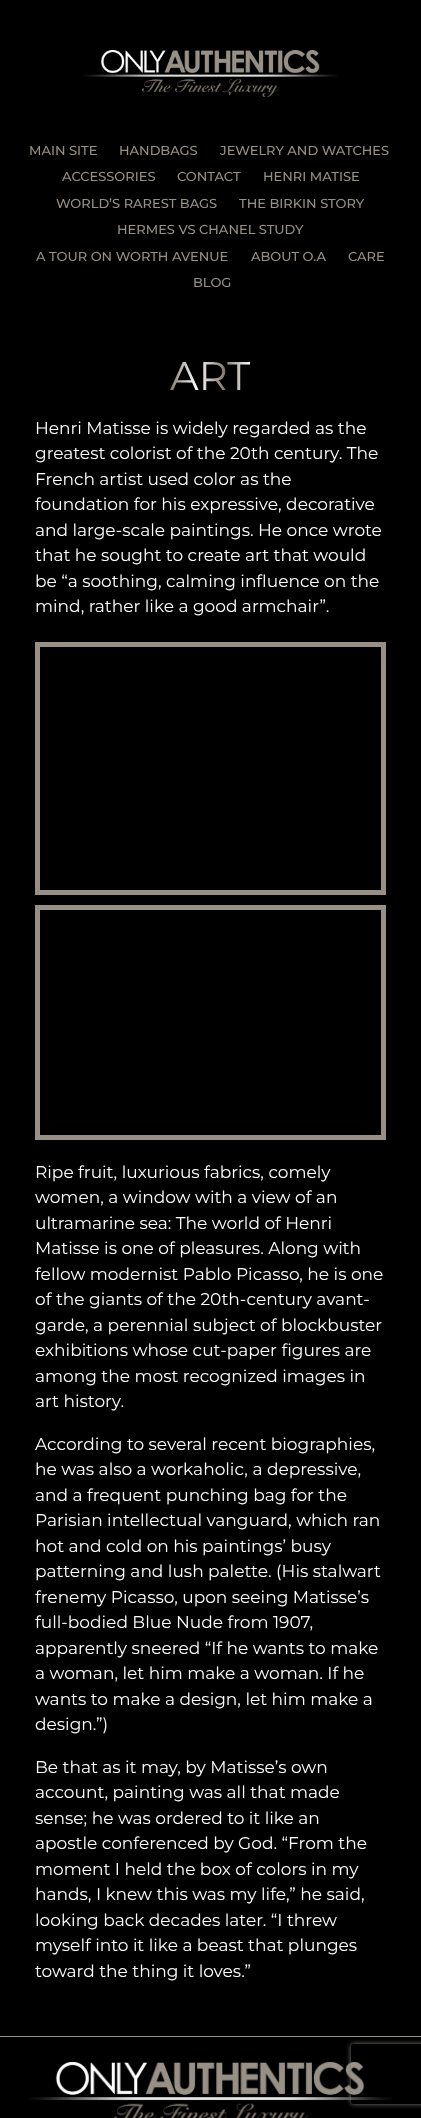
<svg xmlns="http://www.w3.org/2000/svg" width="421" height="2118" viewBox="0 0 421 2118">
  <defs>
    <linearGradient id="g1" gradientUnits="userSpaceOnUse" x1="170" y1="376" x2="251" y2="376"><stop offset="0" stop-color="#84796e"/><stop offset="0.33" stop-color="#ffffff"/><stop offset="0.67" stop-color="#84796e"/><stop offset="1" stop-color="#ffffff"/></linearGradient>
    <clipPath id="clip1"><path d="M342 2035H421V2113H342ZM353 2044H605C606 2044 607 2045 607 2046V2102C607 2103 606 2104 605 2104H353C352 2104 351 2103 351 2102V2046C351 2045 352 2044 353 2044Z" clip-rule="evenodd"/></clipPath>
    <filter id="blur1" x="-50%" y="-200%" width="200%" height="500%"><feGaussianBlur stdDeviation="2.5"/></filter>
  </defs>
  <rect width="100%" height="100%" fill="#000000"/>
  <image x="83" y="50" width="255" height="47" href="img1.png"/>
  <text x="29" y="155" font-family="Montserrat" font-size="13" font-weight="500" fill="#989087">MAIN SITE</text>
  <text x="119" y="155" font-family="Montserrat" font-size="13" font-weight="500" fill="#989087">HANDBAGS</text>
  <text x="220" y="155" font-family="Montserrat" font-size="13" font-weight="500" fill="#989087">JEWELRY AND WATCHES</text>
  <text x="62" y="181" font-family="Montserrat" font-size="13" font-weight="500" fill="#989087">ACCESSORIES</text>
  <text x="177" y="181" font-family="Montserrat" font-size="13" font-weight="500" fill="#989087">CONTACT</text>
  <text x="263" y="181" font-family="Montserrat" font-size="13" font-weight="500" fill="#989087">HENRI MATISE</text>
  <text x="56" y="208" font-family="Montserrat" font-size="13" font-weight="500" fill="#989087">WORLD’S RAREST BAGS</text>
  <text x="239" y="208" font-family="Montserrat" font-size="13" font-weight="500" fill="#989087">THE BIRKIN STORY</text>
  <text x="117" y="234" font-family="Montserrat" font-size="13" font-weight="500" fill="#989087">HERMES VS CHANEL STUDY</text>
  <text x="36" y="261" font-family="Montserrat" font-size="13" font-weight="500" fill="#989087">A TOUR ON WORTH AVENUE</text>
  <text x="251" y="261" font-family="Montserrat" font-size="13" font-weight="500" fill="#989087">ABOUT O.A</text>
  <text x="348" y="261" font-family="Montserrat" font-size="13" font-weight="500" fill="#989087">CARE</text>
  <text x="193" y="287" font-family="Montserrat" font-size="13" font-weight="500" fill="#989087">BLOG</text>
  <text x="170" y="390" font-family="Montserrat" font-size="40" fill="url(#g1)">ART</text>
  <text x="35" y="434" font-family="Montserrat" font-size="17" fill="#ffffff">Henri Matisse is widely regarded as the</text>
  <text x="35" y="459" font-family="Montserrat" font-size="17" fill="#ffffff">greatest colorist of the 20th century. The</text>
  <text x="35" y="485" font-family="Montserrat" font-size="17" fill="#ffffff">French artist used color as the</text>
  <text x="35" y="510" font-family="Montserrat" font-size="17" fill="#ffffff">foundation for his expressive, decorative</text>
  <text x="35" y="536" font-family="Montserrat" font-size="17" fill="#ffffff">and large-scale paintings. He once wrote</text>
  <text x="35" y="561" font-family="Montserrat" font-size="17" fill="#ffffff">that he sought to create art that would</text>
  <text x="35" y="587" font-family="Montserrat" font-size="17" fill="#ffffff">be “a soothing, calming influence on the</text>
  <text x="35" y="612" font-family="Montserrat" font-size="17" fill="#ffffff">mind, rather like a good armchair”.</text>
  <rect x="37.5" y="644.5" width="346" height="248" fill="none" stroke="#989087" stroke-width="5"/>
  <rect x="37.5" y="907.5" width="346" height="230" fill="none" stroke="#989087" stroke-width="5"/>
  <text x="35" y="1178" font-family="Montserrat" font-size="17" fill="#ffffff">Ripe fruit, luxurious fabrics, comely</text>
  <text x="35" y="1203" font-family="Montserrat" font-size="17" fill="#ffffff">women, a window with a view of an</text>
  <text x="35" y="1229" font-family="Montserrat" font-size="17" fill="#ffffff">ultramarine sea: The world of Henri</text>
  <text x="35" y="1254" font-family="Montserrat" font-size="17" fill="#ffffff">Matisse is one of pleasures. Along with</text>
  <text x="35" y="1280" font-family="Montserrat" font-size="17" fill="#ffffff">fellow modernist Pablo Picasso, he is one</text>
  <text x="35" y="1305" font-family="Montserrat" font-size="17" fill="#ffffff">of the giants of the 20th-century avant-</text>
  <text x="35" y="1331" font-family="Montserrat" font-size="17" fill="#ffffff">garde, a perennial subject of blockbuster</text>
  <text x="35" y="1356" font-family="Montserrat" font-size="17" fill="#ffffff">exhibitions whose cut-paper figures are</text>
  <text x="35" y="1382" font-family="Montserrat" font-size="17" fill="#ffffff">among the most recognized images in</text>
  <text x="35" y="1407" font-family="Montserrat" font-size="17" fill="#ffffff">art history.</text>
  <text x="35" y="1450" font-family="Montserrat" font-size="17" fill="#ffffff">According to several recent biographies,</text>
  <text x="35" y="1475" font-family="Montserrat" font-size="17" fill="#ffffff">he was also a workaholic, a depressive,</text>
  <text x="35" y="1501" font-family="Montserrat" font-size="17" fill="#ffffff">and a frequent punching bag for the</text>
  <text x="35" y="1526" font-family="Montserrat" font-size="17" fill="#ffffff">Parisian intellectual vanguard, which ran</text>
  <text x="35" y="1552" font-family="Montserrat" font-size="17" fill="#ffffff">hot and cold on his paintings’ busy</text>
  <text x="35" y="1577" font-family="Montserrat" font-size="17" fill="#ffffff">patterning and lush palette. (His stalwart</text>
  <text x="35" y="1603" font-family="Montserrat" font-size="17" fill="#ffffff">frenemy Picasso, upon seeing Matisse’s</text>
  <text x="35" y="1628" font-family="Montserrat" font-size="17" fill="#ffffff">full-bodied Blue Nude from 1907,</text>
  <text x="35" y="1654" font-family="Montserrat" font-size="17" fill="#ffffff">apparently sneered “If he wants to make</text>
  <text x="35" y="1679" font-family="Montserrat" font-size="17" fill="#ffffff">a woman, let him make a woman. If he</text>
  <text x="35" y="1705" font-family="Montserrat" font-size="17" fill="#ffffff">wants to make a design, let him make a</text>
  <text x="35" y="1730" font-family="Montserrat" font-size="17" fill="#ffffff">design.”)</text>
  <text x="35" y="1773" font-family="Montserrat" font-size="17" fill="#ffffff">Be that as it may, by Matisse’s own</text>
  <text x="35" y="1798" font-family="Montserrat" font-size="17" fill="#ffffff">account, painting was all that made</text>
  <text x="35" y="1824" font-family="Montserrat" font-size="17" fill="#ffffff">sense; he was ordered to it like an</text>
  <text x="35" y="1849" font-family="Montserrat" font-size="17" fill="#ffffff">apostle conferenced by God. “From the</text>
  <text x="35" y="1875" font-family="Montserrat" font-size="17" fill="#ffffff">moment I held the box of colors in my</text>
  <text x="35" y="1900" font-family="Montserrat" font-size="17" fill="#ffffff">hands, I knew this was my life,” he said,</text>
  <text x="35" y="1926" font-family="Montserrat" font-size="17" fill="#ffffff">looking back decades later. “I threw</text>
  <text x="35" y="1951" font-family="Montserrat" font-size="17" fill="#ffffff">myself into it like a beast that plunges</text>
  <text x="35" y="1977" font-family="Montserrat" font-size="17" fill="#ffffff">toward the thing it loves.”</text>
  <rect x="0" y="2036" width="421" height="1" fill="#989087"/>
  <image x="29" y="2062" width="363" height="56" href="img2.png"/>
  <g clip-path="url(#clip1)">
    <rect x="351" y="2044" width="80" height="60" rx="2" fill="#808080" filter="url(#blur1)"/>
  </g>
</svg>
